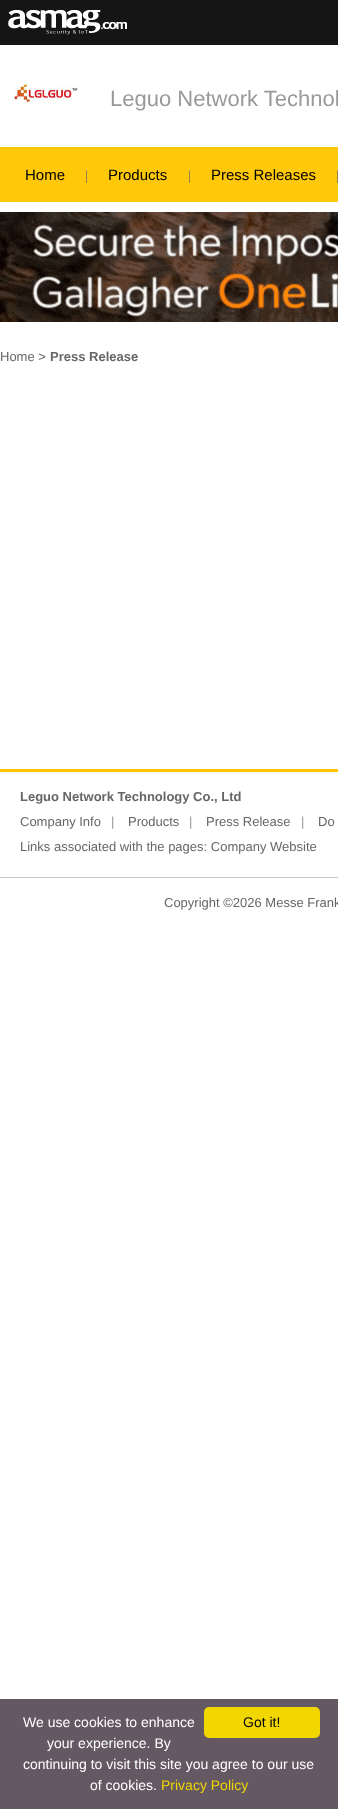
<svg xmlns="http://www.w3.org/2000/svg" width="338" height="1809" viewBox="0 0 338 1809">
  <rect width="100%" height="100%" fill="#ffffff"/>
  <rect x="0" y="0" width="338" height="45" fill="#151515"/>
  <image x="8" y="10" width="119" height="25" href="img1.png"/>
  <image x="13" y="82" width="65" height="22" href="img2.png"/>
  <text x="110" y="106" font-family="Liberation Sans" font-size="22" fill="#999999">Leguo Network Technol</text>
  <rect x="0" y="147" width="338" height="55" fill="#ffc808"/>
  <text x="25" y="180" font-family="Liberation Sans" font-size="15" fill="#000000">Home</text>
  <text x="85" y="180" font-family="Liberation Serif" font-size="14" fill="#666666">|</text>
  <text x="108" y="180" font-family="Liberation Sans" font-size="15" fill="#000000">Products</text>
  <text x="188" y="180" font-family="Liberation Serif" font-size="14" fill="#666666">|</text>
  <text x="211" y="180" font-family="Liberation Sans" font-size="15" fill="#000000">Press Releases</text>
  <text x="336" y="180" font-family="Liberation Serif" font-size="14" fill="#666666">|</text>
  <image x="0" y="212" width="338" height="110" href="img3.png"/>
  <text x="0" y="361" font-family="Liberation Sans" font-size="13" fill="#666666">Home &gt;</text>
  <text x="50" y="361" font-family="Liberation Sans" font-size="13" font-weight="bold" fill="#666666">Press Release</text>
  <rect x="0" y="769" width="338" height="3" fill="#ffc600"/>
  <text x="20" y="801" font-family="Liberation Sans" font-size="13" font-weight="bold" fill="#666666">Leguo Network Technology Co., Ltd</text>
  <text x="20" y="826" font-family="Liberation Sans" font-size="13" fill="#666666">Company Info</text>
  <text x="111" y="826" font-family="Liberation Sans" font-size="13" fill="#999999">|</text>
  <text x="128" y="826" font-family="Liberation Sans" font-size="13" fill="#666666">Products</text>
  <text x="189" y="826" font-family="Liberation Sans" font-size="13" fill="#999999">|</text>
  <text x="206" y="826" font-family="Liberation Sans" font-size="13" fill="#666666">Press Release</text>
  <text x="301" y="826" font-family="Liberation Sans" font-size="13" fill="#999999">|</text>
  <text x="318" y="826" font-family="Liberation Sans" font-size="13" fill="#666666">Do</text>
  <text x="20" y="851" font-family="Liberation Sans" font-size="13" fill="#666666">Links associated with the pages: Company Website</text>
  <rect x="0" y="877" width="338" height="1" fill="#c7c7c7"/>
  <text x="164" y="907" font-family="Liberation Sans" font-size="13" fill="#666666">Copyright ©2026 Messe Frank</text>
  <rect x="0" y="1699" width="338" height="110" fill="#645862"/>
  <text x="23" y="1727" font-family="Liberation Sans" font-size="14" fill="#ffffff">We use cookies to enhance</text>
  <text x="47" y="1748" font-family="Liberation Sans" font-size="14" fill="#ffffff">your experience. By</text>
  <text x="23" y="1769" font-family="Liberation Sans" font-size="14" fill="#ffffff">continuing to visit this site you agree to our use</text>
  <text x="90" y="1790" font-family="Liberation Sans" font-size="14" fill="#ffffff">of cookies.</text>
  <text x="161" y="1790" font-family="Liberation Sans" font-size="14" fill="#f1d600">Privacy Policy</text>
  <rect x="204" y="1707" width="116" height="31" rx="5" fill="#f1d600"/>
  <text x="243" y="1727" font-family="Liberation Sans" font-size="14" fill="#000000">Got it!</text>
</svg>
